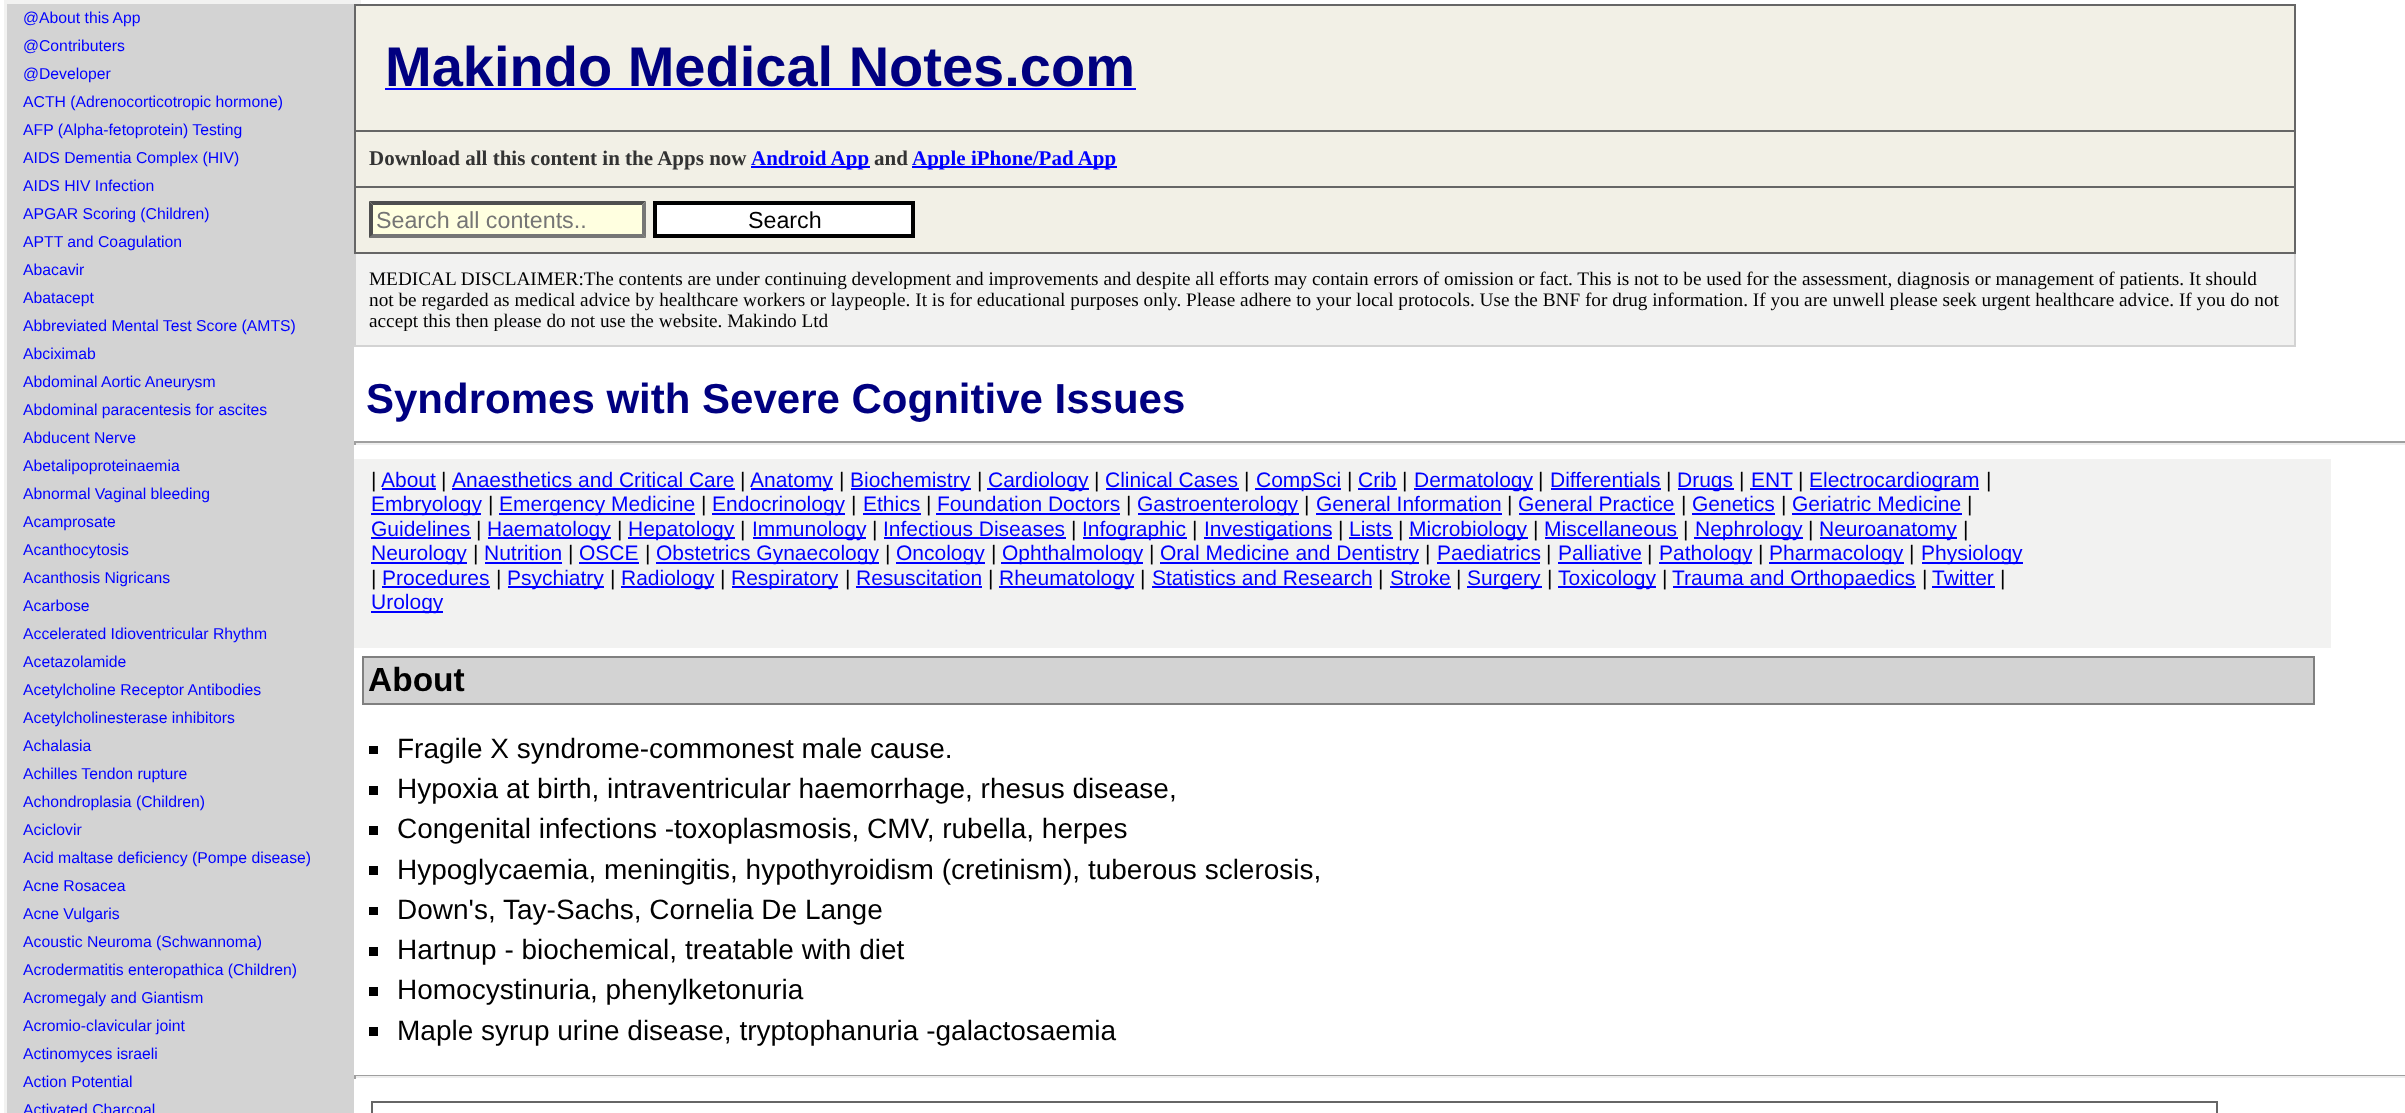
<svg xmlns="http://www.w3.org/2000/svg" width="2405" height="1113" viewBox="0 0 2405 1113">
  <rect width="100%" height="100%" fill="#ffffff"/>
  <rect x="4" y="0" width="357" height="1113" fill="#f2f2f1"/>
  <rect x="7" y="4" width="347" height="1109" fill="#d3d3d3"/>
  <text x="23" y="23" font-family="Liberation Sans" font-size="15.75" fill="#0000ff">@About this App</text>
  <text x="23" y="51" font-family="Liberation Sans" font-size="15.75" fill="#0000ff">@Contributers</text>
  <text x="23" y="79" font-family="Liberation Sans" font-size="15.75" fill="#0000ff">@Developer</text>
  <text x="23" y="107" font-family="Liberation Sans" font-size="15.75" fill="#0000ff">ACTH (Adrenocorticotropic hormone)</text>
  <text x="23" y="135" font-family="Liberation Sans" font-size="15.75" fill="#0000ff">AFP (Alpha-fetoprotein) Testing</text>
  <text x="23" y="163" font-family="Liberation Sans" font-size="15.75" fill="#0000ff">AIDS Dementia Complex (HIV)</text>
  <text x="23" y="191" font-family="Liberation Sans" font-size="15.75" fill="#0000ff">AIDS HIV Infection</text>
  <text x="23" y="219" font-family="Liberation Sans" font-size="15.75" fill="#0000ff">APGAR Scoring (Children)</text>
  <text x="23" y="247" font-family="Liberation Sans" font-size="15.75" fill="#0000ff">APTT and Coagulation</text>
  <text x="23" y="275" font-family="Liberation Sans" font-size="15.75" fill="#0000ff">Abacavir</text>
  <text x="23" y="303" font-family="Liberation Sans" font-size="15.75" fill="#0000ff">Abatacept</text>
  <text x="23" y="331" font-family="Liberation Sans" font-size="15.75" fill="#0000ff">Abbreviated Mental Test Score (AMTS)</text>
  <text x="23" y="359" font-family="Liberation Sans" font-size="15.75" fill="#0000ff">Abciximab</text>
  <text x="23" y="387" font-family="Liberation Sans" font-size="15.75" fill="#0000ff">Abdominal Aortic Aneurysm</text>
  <text x="23" y="415" font-family="Liberation Sans" font-size="15.75" fill="#0000ff">Abdominal paracentesis for ascites</text>
  <text x="23" y="443" font-family="Liberation Sans" font-size="15.75" fill="#0000ff">Abducent Nerve</text>
  <text x="23" y="471" font-family="Liberation Sans" font-size="15.75" fill="#0000ff">Abetalipoproteinaemia</text>
  <text x="23" y="499" font-family="Liberation Sans" font-size="15.75" fill="#0000ff">Abnormal Vaginal bleeding</text>
  <text x="23" y="527" font-family="Liberation Sans" font-size="15.75" fill="#0000ff">Acamprosate</text>
  <text x="23" y="555" font-family="Liberation Sans" font-size="15.75" fill="#0000ff">Acanthocytosis</text>
  <text x="23" y="583" font-family="Liberation Sans" font-size="15.75" fill="#0000ff">Acanthosis Nigricans</text>
  <text x="23" y="611" font-family="Liberation Sans" font-size="15.75" fill="#0000ff">Acarbose</text>
  <text x="23" y="639" font-family="Liberation Sans" font-size="15.75" fill="#0000ff">Accelerated Idioventricular Rhythm</text>
  <text x="23" y="667" font-family="Liberation Sans" font-size="15.75" fill="#0000ff">Acetazolamide</text>
  <text x="23" y="695" font-family="Liberation Sans" font-size="15.75" fill="#0000ff">Acetylcholine Receptor Antibodies</text>
  <text x="23" y="723" font-family="Liberation Sans" font-size="15.75" fill="#0000ff">Acetylcholinesterase inhibitors</text>
  <text x="23" y="751" font-family="Liberation Sans" font-size="15.75" fill="#0000ff">Achalasia</text>
  <text x="23" y="779" font-family="Liberation Sans" font-size="15.75" fill="#0000ff">Achilles Tendon rupture</text>
  <text x="23" y="807" font-family="Liberation Sans" font-size="15.75" fill="#0000ff">Achondroplasia (Children)</text>
  <text x="23" y="835" font-family="Liberation Sans" font-size="15.75" fill="#0000ff">Aciclovir</text>
  <text x="23" y="863" font-family="Liberation Sans" font-size="15.75" fill="#0000ff">Acid maltase deficiency (Pompe disease)</text>
  <text x="23" y="891" font-family="Liberation Sans" font-size="15.75" fill="#0000ff">Acne Rosacea</text>
  <text x="23" y="919" font-family="Liberation Sans" font-size="15.75" fill="#0000ff">Acne Vulgaris</text>
  <text x="23" y="947" font-family="Liberation Sans" font-size="15.75" fill="#0000ff">Acoustic Neuroma (Schwannoma)</text>
  <text x="23" y="975" font-family="Liberation Sans" font-size="15.75" fill="#0000ff">Acrodermatitis enteropathica (Children)</text>
  <text x="23" y="1003" font-family="Liberation Sans" font-size="15.75" fill="#0000ff">Acromegaly and Giantism</text>
  <text x="23" y="1031" font-family="Liberation Sans" font-size="15.75" fill="#0000ff">Acromio-clavicular joint</text>
  <text x="23" y="1059" font-family="Liberation Sans" font-size="15.75" fill="#0000ff">Actinomyces israeli</text>
  <text x="23" y="1087" font-family="Liberation Sans" font-size="15.75" fill="#0000ff">Action Potential</text>
  <text x="23" y="1115" font-family="Liberation Sans" font-size="15.75" fill="#0000ff">Activated Charcoal</text>
  <rect x="354" y="4" width="7" height="1109" fill="#ffffff"/>
  <rect x="356" y="6" width="1938" height="124" fill="#f2f0e6"/>
  <rect x="354" y="4" width="1942" height="2" fill="#666666"/>
  <rect x="354" y="130" width="1942" height="2" fill="#666666"/>
  <rect x="354" y="186" width="1942" height="2" fill="#666666"/>
  <rect x="2294" y="252" width="2" height="95" fill="#d3d3d3"/>
  <rect x="2294" y="186" width="2" height="68" fill="#666666"/>
  <rect x="2294" y="130" width="2" height="57" fill="#666666"/>
  <rect x="2294" y="4" width="2" height="127" fill="#666666"/>
  <rect x="354" y="345" width="1942" height="2" fill="#d3d3d3"/>
  <rect x="354" y="252" width="2" height="95" fill="#d3d3d3"/>
  <rect x="354" y="252" width="1942" height="2" fill="#666666"/>
  <rect x="354" y="186" width="2" height="68" fill="#666666"/>
  <rect x="354" y="130" width="2" height="57" fill="#666666"/>
  <rect x="354" y="4" width="2" height="127" fill="#666666"/>
  <text x="385" y="86" font-family="Liberation Sans" font-size="56" font-weight="bold" fill="#000080">Makindo Medical Notes.com</text>
  <rect x="385" y="88" width="751" height="2" fill="#0000ff"/>
  <rect x="356" y="132" width="1938" height="54" fill="#f2f0e6"/>
  <text x="369" y="165" font-family="Liberation Serif" font-size="21" font-weight="bold" fill="#333333">Download all this content in the Apps now</text>
  <rect x="751" y="166" width="119" height="2" fill="#0000ff"/>
  <text x="751" y="165" font-family="Liberation Serif" font-size="21" font-weight="bold" fill="#0000ff">Android App</text>
  <text x="874" y="165" font-family="Liberation Serif" font-size="21" font-weight="bold" fill="#333333">and</text>
  <rect x="912" y="166" width="205" height="2" fill="#0000ff"/>
  <text x="912" y="165" font-family="Liberation Serif" font-size="21" font-weight="bold" fill="#0000ff">Apple iPhone/Pad App</text>
  <rect x="356" y="188" width="1938" height="64" fill="#f2f0e6"/>
  <rect x="369" y="201" width="277" height="37" fill="#ffffe0"/>
  <path d="M369 201H646L642 205H373Z" fill="#4f4f4f"/>
  <path d="M646 201V238L642 234.5V205Z" fill="#767676"/>
  <path d="M646 238H369L373 234H642Z" fill="#767676"/>
  <path d="M369 238V201L373 205V234.5Z" fill="#4f4f4f"/>
  <text x="376" y="228" font-family="Liberation Sans" font-size="23.25" fill="#757575">Search all contents..</text>
  <rect x="655" y="203" width="258" height="33" fill="#ffffff" stroke="#000000" stroke-width="4"/>
  <text x="748" y="228" font-family="Liberation Sans" font-size="23.25" fill="#000000">Search</text>
  <rect x="356" y="254" width="1938" height="91" fill="#f2f2f1"/>
  <text x="369" y="285" font-family="Liberation Serif" font-size="19.25" fill="#000000">MEDICAL DISCLAIMER:The contents are under continuing development and improvements and despite all efforts may contain errors of omission or fact. This is not to be used for the assessment, diagnosis or management of patients. It should</text>
  <text x="369" y="306" font-family="Liberation Serif" font-size="19.25" fill="#000000">not be regarded as medical advice by healthcare workers or laypeople. It is for educational purposes only. Please adhere to your local protocols. Use the BNF for drug information. If you are unwell please seek urgent healthcare advice. If you do not</text>
  <text x="369" y="327" font-family="Liberation Serif" font-size="19.25" fill="#000000">accept this then please do not use the website. Makindo Ltd</text>
  <text x="366" y="413" font-family="Liberation Sans" font-size="42" font-weight="bold" fill="#000080">Syndromes with Severe Cognitive Issues</text>
  <rect x="354" y="441" width="2051" height="2" fill="#9f9f9f"/>
  <rect x="354" y="443" width="2051" height="2" fill="#eeeeee"/>
  <rect x="354" y="441" width="2" height="4" fill="#9f9f9f"/>
  <rect x="354" y="459" width="1977" height="189" fill="#f2f2f1"/>
  <text x="371" y="487" font-family="Liberation Sans" font-size="21" fill="#000000">|</text>
  <text x="381" y="487" font-family="Liberation Sans" font-size="21" fill="#0000ff">About</text>
  <rect x="382" y="488" width="54" height="2" fill="#0000ff"/>
  <text x="441" y="487" font-family="Liberation Sans" font-size="21" fill="#000000">|</text>
  <text x="452" y="487" font-family="Liberation Sans" font-size="21" fill="#0000ff">Anaesthetics and Critical Care</text>
  <rect x="452" y="488" width="283" height="2" fill="#0000ff"/>
  <text x="740" y="487" font-family="Liberation Sans" font-size="21" fill="#000000">|</text>
  <rect x="751" y="488" width="82" height="2" fill="#0000ff"/>
  <text x="750" y="487" font-family="Liberation Sans" font-size="21" fill="#0000ff">Anatomy</text>
  <text x="839" y="487" font-family="Liberation Sans" font-size="21" fill="#000000">|</text>
  <rect x="851" y="488" width="120" height="2" fill="#0000ff"/>
  <text x="850" y="487" font-family="Liberation Sans" font-size="21" fill="#0000ff">Biochemistry</text>
  <text x="977" y="487" font-family="Liberation Sans" font-size="21" fill="#000000">|</text>
  <rect x="987" y="488" width="102" height="2" fill="#0000ff"/>
  <text x="988" y="487" font-family="Liberation Sans" font-size="21" fill="#0000ff">Cardiology</text>
  <text x="1094" y="487" font-family="Liberation Sans" font-size="21" fill="#000000">|</text>
  <text x="1105" y="487" font-family="Liberation Sans" font-size="21" fill="#0000ff">Clinical Cases</text>
  <rect x="1106" y="488" width="133" height="2" fill="#0000ff"/>
  <text x="1244" y="487" font-family="Liberation Sans" font-size="21" fill="#000000">|</text>
  <rect x="1255" y="488" width="86" height="2" fill="#0000ff"/>
  <text x="1256" y="487" font-family="Liberation Sans" font-size="21" fill="#0000ff">CompSci</text>
  <text x="1347" y="487" font-family="Liberation Sans" font-size="21" fill="#000000">|</text>
  <text x="1358" y="487" font-family="Liberation Sans" font-size="21" fill="#0000ff">Crib</text>
  <rect x="1358" y="488" width="39" height="2" fill="#0000ff"/>
  <text x="1402" y="487" font-family="Liberation Sans" font-size="21" fill="#000000">|</text>
  <rect x="1414" y="488" width="119" height="2" fill="#0000ff"/>
  <text x="1414" y="487" font-family="Liberation Sans" font-size="21" fill="#0000ff">Dermatology</text>
  <text x="1538" y="487" font-family="Liberation Sans" font-size="21" fill="#000000">|</text>
  <text x="1550" y="487" font-family="Liberation Sans" font-size="21" fill="#0000ff">Differentials</text>
  <rect x="1551" y="488" width="110" height="2" fill="#0000ff"/>
  <text x="1666" y="487" font-family="Liberation Sans" font-size="21" fill="#000000">|</text>
  <rect x="1678" y="488" width="56" height="2" fill="#0000ff"/>
  <text x="1677" y="487" font-family="Liberation Sans" font-size="21" fill="#0000ff">Drugs</text>
  <text x="1739" y="487" font-family="Liberation Sans" font-size="21" fill="#000000">|</text>
  <text x="1751" y="487" font-family="Liberation Sans" font-size="21" fill="#0000ff">ENT</text>
  <rect x="1750" y="488" width="42" height="2" fill="#0000ff"/>
  <text x="1798" y="487" font-family="Liberation Sans" font-size="21" fill="#000000">|</text>
  <rect x="1810" y="488" width="169" height="2" fill="#0000ff"/>
  <text x="1809" y="487" font-family="Liberation Sans" font-size="21" fill="#0000ff">Electrocardiogram</text>
  <text x="1986" y="487" font-family="Liberation Sans" font-size="21" fill="#000000">|</text>
  <rect x="371" y="513" width="110" height="2" fill="#0000ff"/>
  <text x="371" y="511" font-family="Liberation Sans" font-size="21" fill="#0000ff">Embryology</text>
  <text x="488" y="511" font-family="Liberation Sans" font-size="21" fill="#000000">|</text>
  <rect x="499" y="513" width="196" height="2" fill="#0000ff"/>
  <text x="499" y="511" font-family="Liberation Sans" font-size="21" fill="#0000ff">Emergency Medicine</text>
  <text x="701" y="511" font-family="Liberation Sans" font-size="21" fill="#000000">|</text>
  <rect x="712" y="513" width="133" height="2" fill="#0000ff"/>
  <text x="712" y="511" font-family="Liberation Sans" font-size="21" fill="#0000ff">Endocrinology</text>
  <text x="851" y="511" font-family="Liberation Sans" font-size="21" fill="#000000">|</text>
  <text x="863" y="511" font-family="Liberation Sans" font-size="21" fill="#0000ff">Ethics</text>
  <rect x="863" y="513" width="58" height="2" fill="#0000ff"/>
  <text x="926" y="511" font-family="Liberation Sans" font-size="21" fill="#000000">|</text>
  <text x="937" y="511" font-family="Liberation Sans" font-size="21" fill="#0000ff">Foundation Doctors</text>
  <rect x="936" y="513" width="184" height="2" fill="#0000ff"/>
  <text x="1126" y="511" font-family="Liberation Sans" font-size="21" fill="#000000">|</text>
  <rect x="1138" y="513" width="161" height="2" fill="#0000ff"/>
  <text x="1137" y="511" font-family="Liberation Sans" font-size="21" fill="#0000ff">Gastroenterology</text>
  <text x="1304" y="511" font-family="Liberation Sans" font-size="21" fill="#000000">|</text>
  <text x="1316" y="511" font-family="Liberation Sans" font-size="21" fill="#0000ff">General Information</text>
  <rect x="1316" y="513" width="186" height="2" fill="#0000ff"/>
  <text x="1507" y="511" font-family="Liberation Sans" font-size="21" fill="#000000">|</text>
  <text x="1518" y="511" font-family="Liberation Sans" font-size="21" fill="#0000ff">General Practice</text>
  <rect x="1519" y="513" width="156" height="2" fill="#0000ff"/>
  <text x="1681" y="511" font-family="Liberation Sans" font-size="21" fill="#000000">|</text>
  <text x="1692" y="511" font-family="Liberation Sans" font-size="21" fill="#0000ff">Genetics</text>
  <rect x="1692" y="513" width="83" height="2" fill="#0000ff"/>
  <text x="1781" y="511" font-family="Liberation Sans" font-size="21" fill="#000000">|</text>
  <text x="1792" y="511" font-family="Liberation Sans" font-size="21" fill="#0000ff">Geriatric Medicine</text>
  <rect x="1792" y="513" width="170" height="2" fill="#0000ff"/>
  <text x="1967" y="511" font-family="Liberation Sans" font-size="21" fill="#000000">|</text>
  <text x="371" y="536" font-family="Liberation Sans" font-size="21" fill="#0000ff">Guidelines</text>
  <rect x="371" y="537" width="100" height="2" fill="#0000ff"/>
  <text x="476" y="536" font-family="Liberation Sans" font-size="21" fill="#000000">|</text>
  <rect x="488" y="537" width="123" height="2" fill="#0000ff"/>
  <text x="487" y="536" font-family="Liberation Sans" font-size="21" fill="#0000ff">Haematology</text>
  <text x="617" y="536" font-family="Liberation Sans" font-size="21" fill="#000000">|</text>
  <rect x="628" y="537" width="107" height="2" fill="#0000ff"/>
  <text x="628" y="536" font-family="Liberation Sans" font-size="21" fill="#0000ff">Hepatology</text>
  <text x="740" y="536" font-family="Liberation Sans" font-size="21" fill="#000000">|</text>
  <rect x="753" y="537" width="113" height="2" fill="#0000ff"/>
  <text x="752" y="536" font-family="Liberation Sans" font-size="21" fill="#0000ff">Immunology</text>
  <text x="872" y="536" font-family="Liberation Sans" font-size="21" fill="#000000">|</text>
  <text x="883" y="536" font-family="Liberation Sans" font-size="21" fill="#0000ff">Infectious Diseases</text>
  <rect x="884" y="537" width="182" height="2" fill="#0000ff"/>
  <text x="1071" y="536" font-family="Liberation Sans" font-size="21" fill="#000000">|</text>
  <rect x="1083" y="537" width="104" height="2" fill="#0000ff"/>
  <text x="1082" y="536" font-family="Liberation Sans" font-size="21" fill="#0000ff">Infographic</text>
  <text x="1192" y="536" font-family="Liberation Sans" font-size="21" fill="#000000">|</text>
  <rect x="1204" y="537" width="128" height="2" fill="#0000ff"/>
  <text x="1204" y="536" font-family="Liberation Sans" font-size="21" fill="#0000ff">Investigations</text>
  <text x="1338" y="536" font-family="Liberation Sans" font-size="21" fill="#000000">|</text>
  <text x="1349" y="536" font-family="Liberation Sans" font-size="21" fill="#0000ff">Lists</text>
  <rect x="1349" y="537" width="44" height="2" fill="#0000ff"/>
  <text x="1398" y="536" font-family="Liberation Sans" font-size="21" fill="#000000">|</text>
  <rect x="1409" y="537" width="119" height="2" fill="#0000ff"/>
  <text x="1409" y="536" font-family="Liberation Sans" font-size="21" fill="#0000ff">Microbiology</text>
  <text x="1533" y="536" font-family="Liberation Sans" font-size="21" fill="#000000">|</text>
  <text x="1544" y="536" font-family="Liberation Sans" font-size="21" fill="#0000ff">Miscellaneous</text>
  <rect x="1545" y="537" width="133" height="2" fill="#0000ff"/>
  <text x="1683" y="536" font-family="Liberation Sans" font-size="21" fill="#000000">|</text>
  <rect x="1694" y="537" width="109" height="2" fill="#0000ff"/>
  <text x="1695" y="536" font-family="Liberation Sans" font-size="21" fill="#0000ff">Nephrology</text>
  <text x="1808" y="536" font-family="Liberation Sans" font-size="21" fill="#000000">|</text>
  <rect x="1820" y="537" width="137" height="2" fill="#0000ff"/>
  <text x="1819" y="536" font-family="Liberation Sans" font-size="21" fill="#0000ff">Neuroanatomy</text>
  <text x="1963" y="536" font-family="Liberation Sans" font-size="21" fill="#000000">|</text>
  <rect x="371" y="562" width="96" height="2" fill="#0000ff"/>
  <text x="371" y="560" font-family="Liberation Sans" font-size="21" fill="#0000ff">Neurology</text>
  <text x="473" y="560" font-family="Liberation Sans" font-size="21" fill="#000000">|</text>
  <text x="484" y="560" font-family="Liberation Sans" font-size="21" fill="#0000ff">Nutrition</text>
  <rect x="485" y="562" width="77" height="2" fill="#0000ff"/>
  <text x="568" y="560" font-family="Liberation Sans" font-size="21" fill="#000000">|</text>
  <text x="579" y="560" font-family="Liberation Sans" font-size="21" fill="#0000ff">OSCE</text>
  <rect x="579" y="562" width="60" height="2" fill="#0000ff"/>
  <text x="645" y="560" font-family="Liberation Sans" font-size="21" fill="#000000">|</text>
  <rect x="656" y="562" width="223" height="2" fill="#0000ff"/>
  <text x="656" y="560" font-family="Liberation Sans" font-size="21" fill="#0000ff">Obstetrics Gynaecology</text>
  <text x="885" y="560" font-family="Liberation Sans" font-size="21" fill="#000000">|</text>
  <rect x="896" y="562" width="89" height="2" fill="#0000ff"/>
  <text x="896" y="560" font-family="Liberation Sans" font-size="21" fill="#0000ff">Oncology</text>
  <text x="991" y="560" font-family="Liberation Sans" font-size="21" fill="#000000">|</text>
  <rect x="1001" y="562" width="142" height="2" fill="#0000ff"/>
  <text x="1002" y="560" font-family="Liberation Sans" font-size="21" fill="#0000ff">Ophthalmology</text>
  <text x="1149" y="560" font-family="Liberation Sans" font-size="21" fill="#000000">|</text>
  <rect x="1160" y="562" width="259" height="2" fill="#0000ff"/>
  <text x="1160" y="560" font-family="Liberation Sans" font-size="21" fill="#0000ff">Oral Medicine and Dentistry</text>
  <text x="1425" y="560" font-family="Liberation Sans" font-size="21" fill="#000000">|</text>
  <text x="1437" y="560" font-family="Liberation Sans" font-size="21" fill="#0000ff">Paediatrics</text>
  <rect x="1437" y="562" width="103" height="2" fill="#0000ff"/>
  <text x="1546" y="560" font-family="Liberation Sans" font-size="21" fill="#000000">|</text>
  <text x="1558" y="560" font-family="Liberation Sans" font-size="21" fill="#0000ff">Palliative</text>
  <rect x="1558" y="562" width="84" height="2" fill="#0000ff"/>
  <text x="1647" y="560" font-family="Liberation Sans" font-size="21" fill="#000000">|</text>
  <rect x="1659" y="562" width="93" height="2" fill="#0000ff"/>
  <text x="1659" y="560" font-family="Liberation Sans" font-size="21" fill="#0000ff">Pathology</text>
  <text x="1758" y="560" font-family="Liberation Sans" font-size="21" fill="#000000">|</text>
  <rect x="1769" y="562" width="135" height="2" fill="#0000ff"/>
  <text x="1769" y="560" font-family="Liberation Sans" font-size="21" fill="#0000ff">Pharmacology</text>
  <text x="1909" y="560" font-family="Liberation Sans" font-size="21" fill="#000000">|</text>
  <rect x="1922" y="562" width="101" height="2" fill="#0000ff"/>
  <text x="1921" y="560" font-family="Liberation Sans" font-size="21" fill="#0000ff">Physiology</text>
  <text x="371" y="585" font-family="Liberation Sans" font-size="21" fill="#000000">|</text>
  <text x="382" y="585" font-family="Liberation Sans" font-size="21" fill="#0000ff">Procedures</text>
  <rect x="382" y="586" width="108" height="2" fill="#0000ff"/>
  <text x="496" y="585" font-family="Liberation Sans" font-size="21" fill="#000000">|</text>
  <rect x="508" y="586" width="96" height="2" fill="#0000ff"/>
  <text x="507" y="585" font-family="Liberation Sans" font-size="21" fill="#0000ff">Psychiatry</text>
  <text x="610" y="585" font-family="Liberation Sans" font-size="21" fill="#000000">|</text>
  <rect x="621" y="586" width="93" height="2" fill="#0000ff"/>
  <text x="621" y="585" font-family="Liberation Sans" font-size="21" fill="#0000ff">Radiology</text>
  <text x="720" y="585" font-family="Liberation Sans" font-size="21" fill="#000000">|</text>
  <rect x="732" y="586" width="106" height="2" fill="#0000ff"/>
  <text x="731" y="585" font-family="Liberation Sans" font-size="21" fill="#0000ff">Respiratory</text>
  <text x="845" y="585" font-family="Liberation Sans" font-size="21" fill="#000000">|</text>
  <text x="856" y="585" font-family="Liberation Sans" font-size="21" fill="#0000ff">Resuscitation</text>
  <rect x="856" y="586" width="126" height="2" fill="#0000ff"/>
  <text x="988" y="585" font-family="Liberation Sans" font-size="21" fill="#000000">|</text>
  <rect x="999" y="586" width="135" height="2" fill="#0000ff"/>
  <text x="999" y="585" font-family="Liberation Sans" font-size="21" fill="#0000ff">Rheumatology</text>
  <text x="1140" y="585" font-family="Liberation Sans" font-size="21" fill="#000000">|</text>
  <text x="1152" y="585" font-family="Liberation Sans" font-size="21" fill="#0000ff">Statistics and Research</text>
  <rect x="1152" y="586" width="220" height="2" fill="#0000ff"/>
  <text x="1378" y="585" font-family="Liberation Sans" font-size="21" fill="#000000">|</text>
  <text x="1390" y="585" font-family="Liberation Sans" font-size="21" fill="#0000ff">Stroke</text>
  <rect x="1390" y="586" width="61" height="2" fill="#0000ff"/>
  <text x="1456" y="585" font-family="Liberation Sans" font-size="21" fill="#000000">|</text>
  <rect x="1467" y="586" width="75" height="2" fill="#0000ff"/>
  <text x="1467" y="585" font-family="Liberation Sans" font-size="21" fill="#0000ff">Surgery</text>
  <text x="1547" y="585" font-family="Liberation Sans" font-size="21" fill="#000000">|</text>
  <rect x="1558" y="586" width="98" height="2" fill="#0000ff"/>
  <text x="1558" y="585" font-family="Liberation Sans" font-size="21" fill="#0000ff">Toxicology</text>
  <text x="1662" y="585" font-family="Liberation Sans" font-size="21" fill="#000000">|</text>
  <rect x="1673" y="586" width="243" height="2" fill="#0000ff"/>
  <text x="1672" y="585" font-family="Liberation Sans" font-size="21" fill="#0000ff">Trauma and Orthopaedics</text>
  <text x="1922" y="585" font-family="Liberation Sans" font-size="21" fill="#000000">|</text>
  <text x="1932" y="585" font-family="Liberation Sans" font-size="21" fill="#0000ff">Twitter</text>
  <rect x="1932" y="586" width="63" height="2" fill="#0000ff"/>
  <text x="2000" y="585" font-family="Liberation Sans" font-size="21" fill="#000000">|</text>
  <rect x="371" y="611" width="72" height="2" fill="#0000ff"/>
  <text x="371" y="609" font-family="Liberation Sans" font-size="21" fill="#0000ff">Urology</text>
  <rect x="363" y="657" width="1951" height="47" fill="#d3d3d3" stroke="#808080" stroke-width="2"/>
  <text x="368" y="691" font-family="Liberation Sans" font-size="33.5" font-weight="bold" fill="#000000">About</text>
  <rect x="369" y="746" width="9" height="8" fill="#000000"/>
  <text x="397" y="758" font-family="Liberation Sans" font-size="28" fill="#000000">Fragile X syndrome-commonest male cause.</text>
  <rect x="369" y="786" width="9" height="9" fill="#000000"/>
  <text x="397" y="798" font-family="Liberation Sans" font-size="28" fill="#000000">Hypoxia at birth, intraventricular haemorrhage, rhesus disease,</text>
  <rect x="369" y="826" width="9" height="9" fill="#000000"/>
  <text x="397" y="838" font-family="Liberation Sans" font-size="28" fill="#000000">Congenital infections -toxoplasmosis, CMV, rubella, herpes</text>
  <rect x="369" y="866" width="9" height="9" fill="#000000"/>
  <text x="397" y="879" font-family="Liberation Sans" font-size="28" fill="#000000">Hypoglycaemia, meningitis, hypothyroidism (cretinism), tuberous sclerosis,</text>
  <rect x="369" y="907" width="9" height="8" fill="#000000"/>
  <text x="397" y="919" font-family="Liberation Sans" font-size="28" fill="#000000">Down's, Tay-Sachs, Cornelia De Lange</text>
  <rect x="369" y="947" width="9" height="9" fill="#000000"/>
  <text x="397" y="959" font-family="Liberation Sans" font-size="28" fill="#000000">Hartnup - biochemical, treatable with diet</text>
  <rect x="369" y="987" width="9" height="9" fill="#000000"/>
  <text x="397" y="999" font-family="Liberation Sans" font-size="28" fill="#000000">Homocystinuria, phenylketonuria</text>
  <rect x="369" y="1027" width="9" height="9" fill="#000000"/>
  <text x="397" y="1040" font-family="Liberation Sans" font-size="28" fill="#000000">Maple syrup urine disease, tryptophanuria -galactosaemia</text>
  <rect x="354" y="1075" width="2051" height="1" fill="#9f9f9f"/>
  <rect x="354" y="1076" width="2051" height="2" fill="#eeeeee"/>
  <rect x="354" y="1075" width="2" height="4" fill="#9f9f9f"/>
  <rect x="371" y="1101" width="1846" height="2" fill="#666666"/>
  <rect x="2216" y="1101" width="2" height="12" fill="#666666"/>
  <rect x="371" y="1101" width="2" height="12" fill="#666666"/>
</svg>
